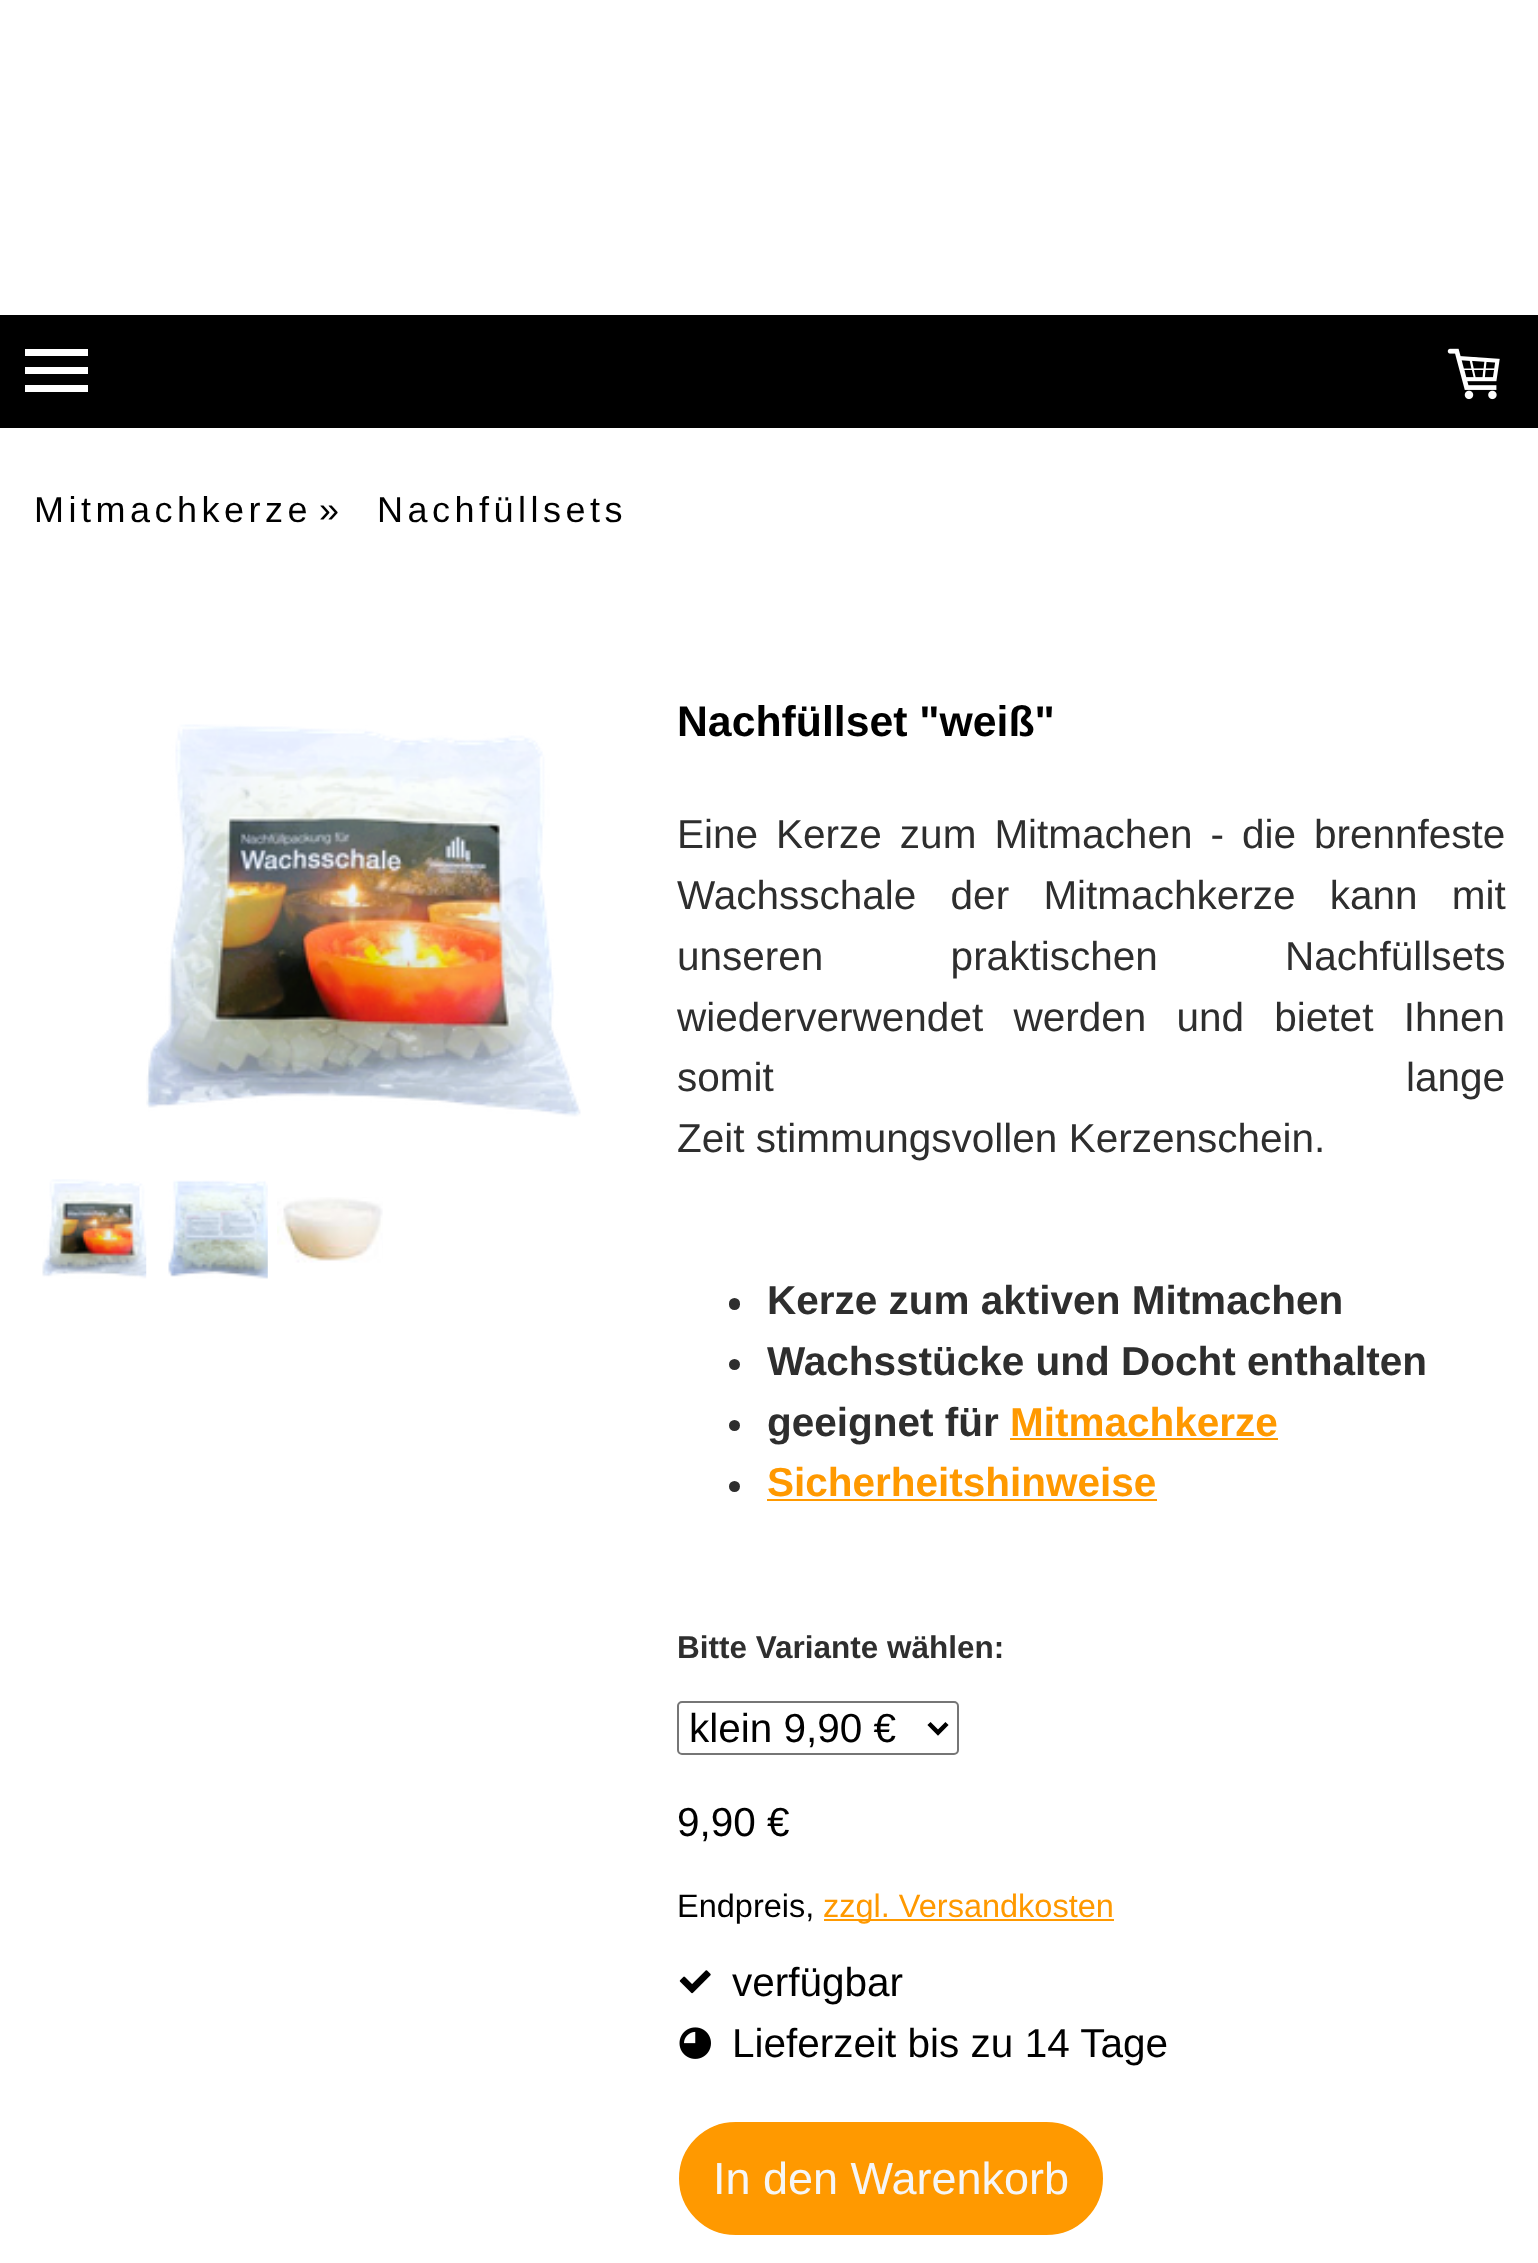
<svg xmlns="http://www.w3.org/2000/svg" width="1538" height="2263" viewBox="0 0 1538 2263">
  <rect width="100%" height="100%" fill="#ffffff"/>
  <rect x="0" y="315" width="1538" height="113" fill="#000000"/>
  <rect x="25" y="367" width="63" height="7" fill="#ffffff"/>
  <rect x="25" y="349" width="63" height="7" fill="#ffffff"/>
  <rect x="25" y="385" width="63" height="7" fill="#ffffff"/>
  <image x="1447" y="348" width="53" height="52" href="img1.png"/>
  <text x="34" y="522" font-family="Liberation Sans" font-size="36" letter-spacing="4.5" fill="#000000">Mitmachkerze</text>
  <text x="319" y="522" font-family="Liberation Sans" font-size="36" letter-spacing="4.5" fill="#000000">»</text>
  <text x="377" y="522" font-family="Liberation Sans" font-size="36" letter-spacing="4.5" fill="#000000">Nachfüllsets</text>
  <image x="146" y="724" width="435" height="393" href="img2.png"/>
  <image x="42" y="1179" width="105" height="100" href="img3.png"/>
  <image x="168" y="1180" width="100" height="99" href="img4.png"/>
  <image x="277" y="1197" width="106" height="66" href="img5.png"/>
  <text x="677" y="736" font-family="Liberation Sans" font-size="42.75" font-weight="bold" fill="#000000">Nachfüllset "weiß"</text>
  <text x="677" y="848" word-spacing="6.75" font-family="Liberation Sans" font-size="40.5" fill="#2e2e2e">Eine Kerze zum Mitmachen - die brennfeste</text>
  <text x="677" y="909" word-spacing="23" font-family="Liberation Sans" font-size="40.5" fill="#2e2e2e">Wachsschale der Mitmachkerze kann mit</text>
  <text x="677" y="970" word-spacing="116" font-family="Liberation Sans" font-size="40.5" fill="#2e2e2e">unseren praktischen Nachfüllsets</text>
  <text x="677" y="1031" word-spacing="19" font-family="Liberation Sans" font-size="40.5" fill="#2e2e2e">wiederverwendet werden und bietet Ihnen</text>
  <text x="677" y="1091" word-spacing="621" font-family="Liberation Sans" font-size="40.5" fill="#2e2e2e">somit lange</text>
  <text x="677" y="1152" font-family="Liberation Sans" font-size="40.5" fill="#2e2e2e">Zeit stimmungsvollen Kerzenschein.</text>
  <rect x="729" y="1298" width="11" height="12" rx="5.5" fill="#2e2e2e"/>
  <text x="767" y="1314" font-family="Liberation Sans" font-size="40.5" font-weight="bold" fill="#2e2e2e">Kerze zum aktiven Mitmachen</text>
  <circle cx="734.5" cy="1364.5" r="5.5" fill="#2e2e2e"/>
  <text x="767" y="1375" font-family="Liberation Sans" font-size="40.5" font-weight="bold" fill="#2e2e2e">Wachsstücke und Docht enthalten</text>
  <circle cx="734.5" cy="1425.5" r="5.5" fill="#2e2e2e"/>
  <text x="767" y="1436" font-family="Liberation Sans" font-size="40.5" font-weight="bold" fill="#2e2e2e">geeignet für</text>
  <text x="1010" y="1436" font-family="Liberation Sans" font-size="40.5" font-weight="bold" fill="#ff9900">Mitmachkerze</text>
  <rect x="1010" y="1438" width="268" height="2" fill="#ff9900"/>
  <circle cx="734.5" cy="1486.5" r="5.5" fill="#2e2e2e"/>
  <text x="767" y="1496" font-family="Liberation Sans" font-size="40.5" font-weight="bold" fill="#ff9900">Sicherheitshinweise</text>
  <rect x="767" y="1499" width="390" height="2" fill="#ff9900"/>
  <text x="677" y="1658" font-family="Liberation Sans" font-size="31.5" font-weight="bold" fill="#2e2e2e">Bitte Variante wählen:</text>
  <rect x="678" y="1702" width="280" height="52" rx="4" fill="none" stroke="#767676" stroke-width="2"/>
  <path d="M929 1723.5L938 1732.5L947 1723.5" fill="none" stroke="#000000" stroke-width="4.5"/>
  <text x="689" y="1742" font-family="Liberation Sans" font-size="40.5" fill="#000000">klein 9,90 €</text>
  <text x="677" y="1836" font-family="Liberation Sans" font-size="40.5" fill="#000000">9,90 €</text>
  <text x="677" y="1917" font-family="Liberation Sans" font-size="32.5" fill="#000000">Endpreis,</text>
  <rect x="824" y="1919" width="290" height="2" fill="#ff9900"/>
  <text x="823" y="1917" font-family="Liberation Sans" font-size="32.5" fill="#ff9900">zzgl. Versandkosten</text>
  <image x="679" y="1970" width="32" height="24" href="img6.png"/>
  <text x="732" y="1996" font-family="Liberation Sans" font-size="40.5" fill="#000000">verfügbar</text>
  <image x="679" y="2027" width="32" height="32" href="img7.png"/>
  <text x="732" y="2057" font-family="Liberation Sans" font-size="40.5" fill="#000000">Lieferzeit bis zu 14 Tage</text>
  <rect x="678" y="2121" width="426" height="115" rx="57.5" fill="#ff9900" stroke="#ffffff" stroke-width="2"/>
  <text x="713" y="2194" font-family="Liberation Sans" font-size="45" fill="#f6f6f6">In den Warenkorb</text>
</svg>
